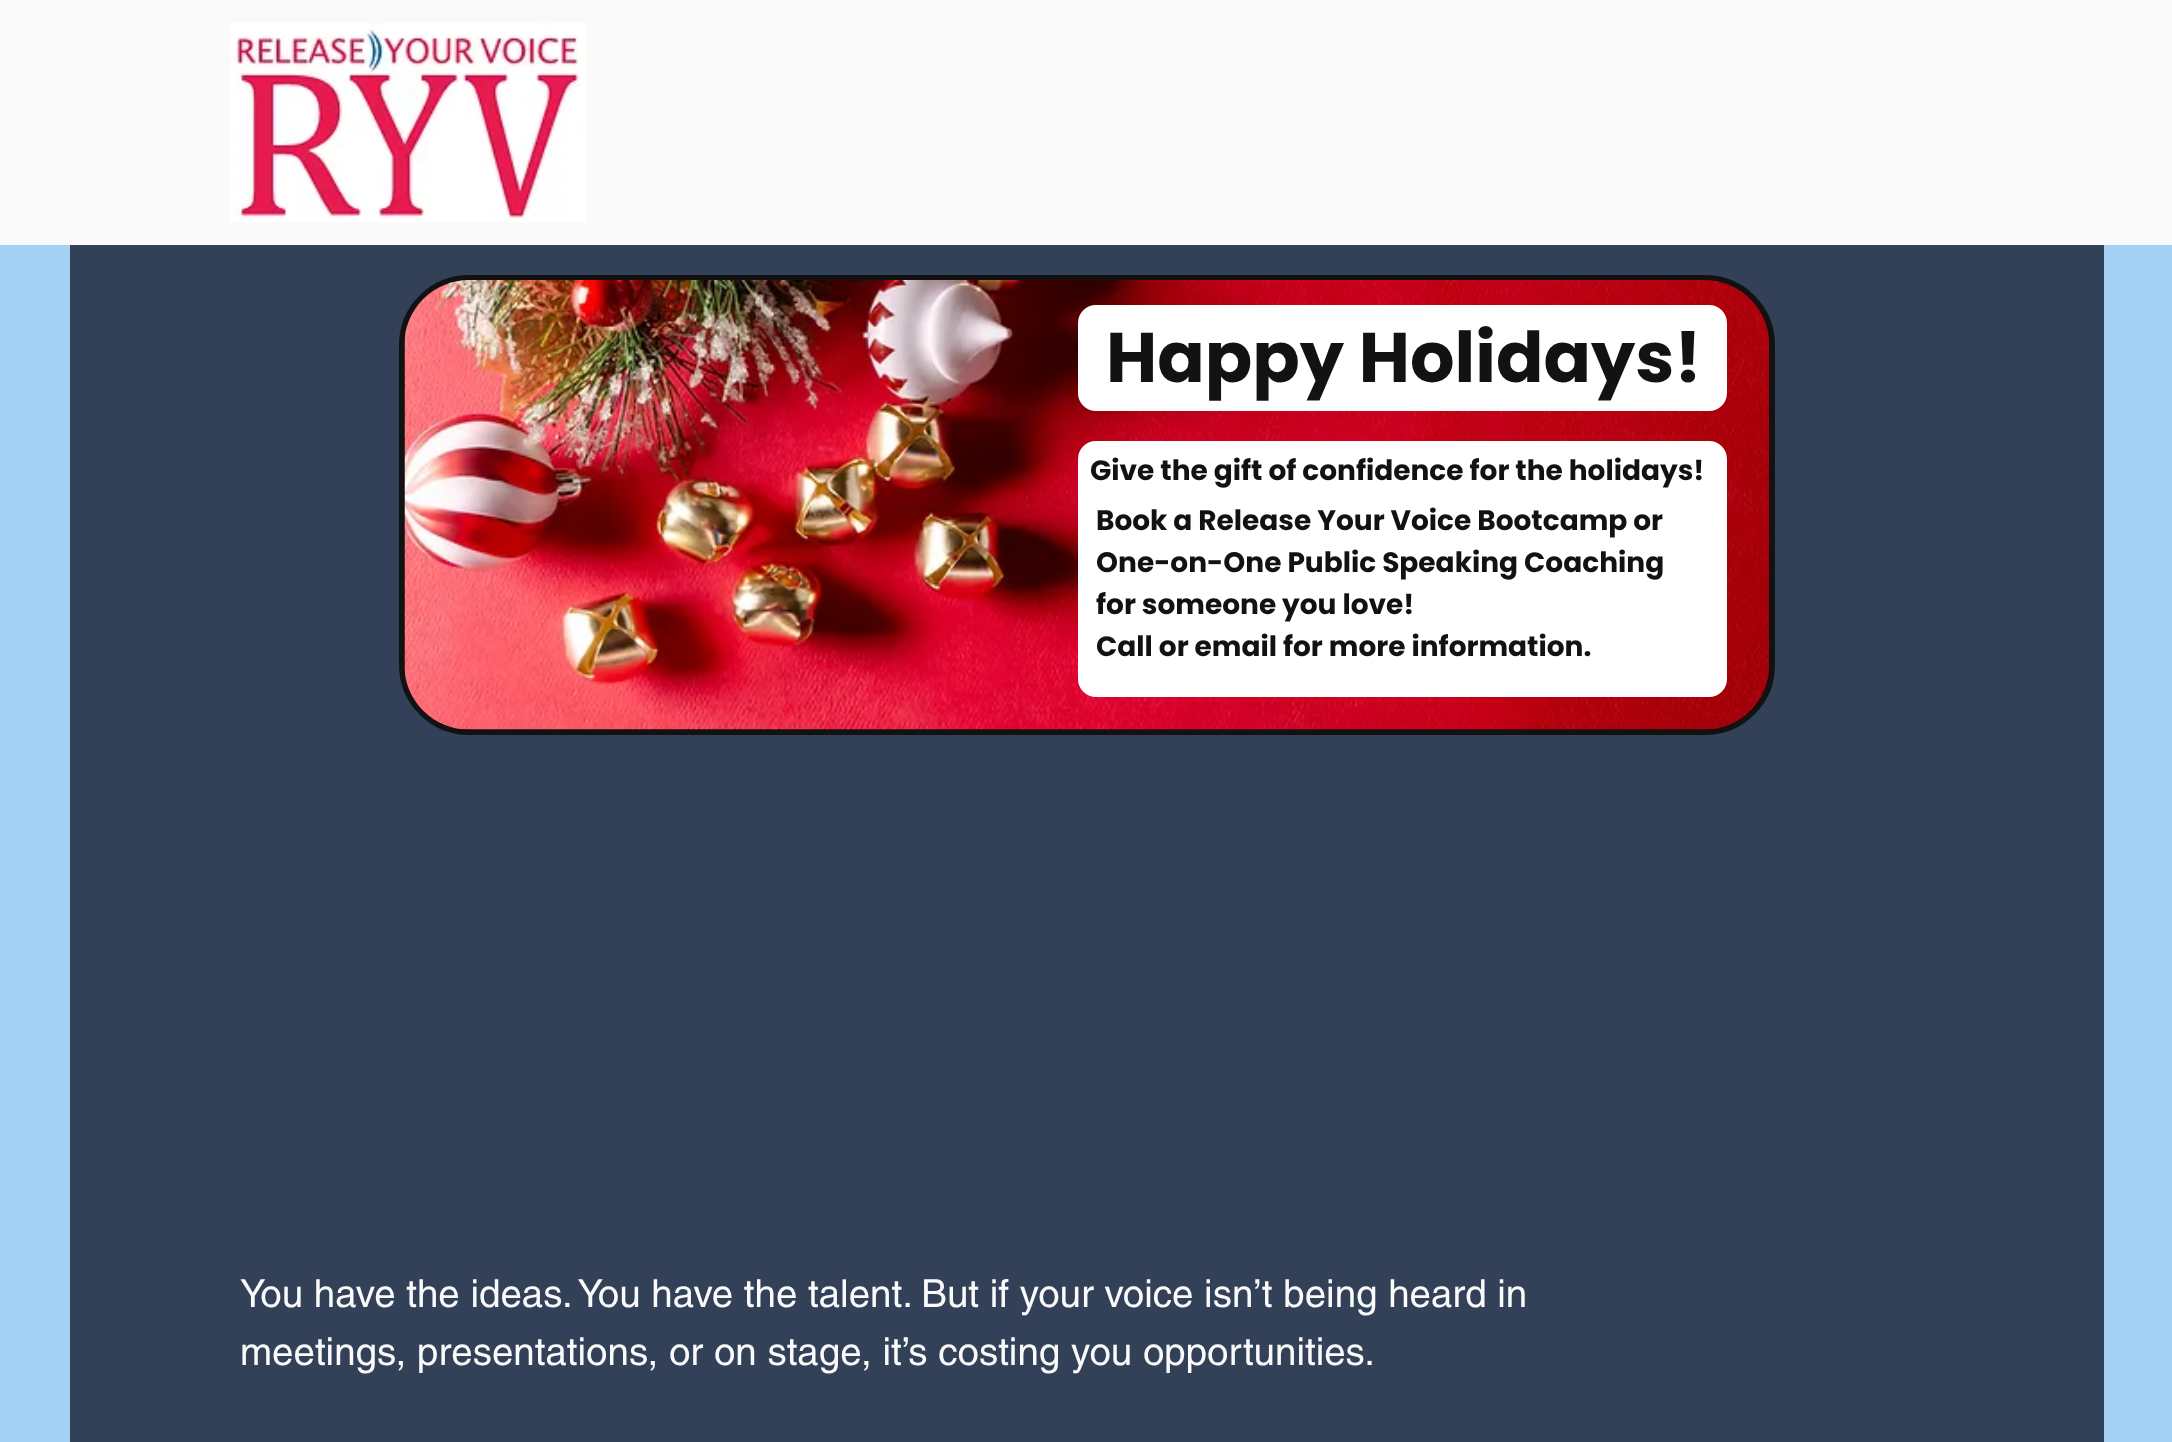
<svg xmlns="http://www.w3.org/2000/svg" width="2172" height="1442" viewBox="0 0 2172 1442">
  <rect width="100%" height="100%" fill="#a5d1f5"/>
  <rect x="0" y="0" width="2172" height="245" fill="#fafafa"/>
  <image x="230" y="23" width="356" height="199" href="img1.png"/>
  <rect x="70" y="245" width="2034" height="1197" fill="#324158"/>
  <rect x="401.5" y="277.5" width="1371" height="455" rx="67.5" fill="#131212" stroke="#131212" stroke-width="5"/>
  <image x="404" y="280" width="1365" height="450" href="img2.png"/>
  <rect x="1078" y="305" width="649" height="106" rx="18" fill="#ffffff"/>
  <text x="1106" y="382" font-family="Poppins" font-size="70" font-weight="bold" fill="#131212">Happy Holidays!</text>
  <rect x="1078" y="441" width="649" height="256" rx="18" fill="#ffffff"/>
  <text x="1090" y="480" font-family="Poppins" font-size="28" font-weight="bold" fill="#131212">Give the gift of confidence for the holidays!</text>
  <text x="1096" y="530" font-family="Poppins" font-size="28" font-weight="bold" fill="#131212">Book a Release Your Voice Bootcamp or</text>
  <text x="1096" y="572" font-family="Poppins" font-size="28" font-weight="bold" fill="#131212">One-on-One Public Speaking Coaching</text>
  <text x="1096" y="614" font-family="Poppins" font-size="28" font-weight="bold" fill="#131212">for someone you love!</text>
  <text x="1096" y="656" font-family="Poppins" font-size="28" font-weight="bold" fill="#131212">Call or email for more information.</text>
  <text x="240" y="1307" font-family="helvetica" font-size="38.5" fill="#fafafa">You have the ideas. You have the talent. But if your voice isn’t being heard in</text>
  <text x="240" y="1365" font-family="helvetica" font-size="38.5" fill="#fafafa">meetings, presentations, or on stage, it’s costing you opportunities.</text>
</svg>
